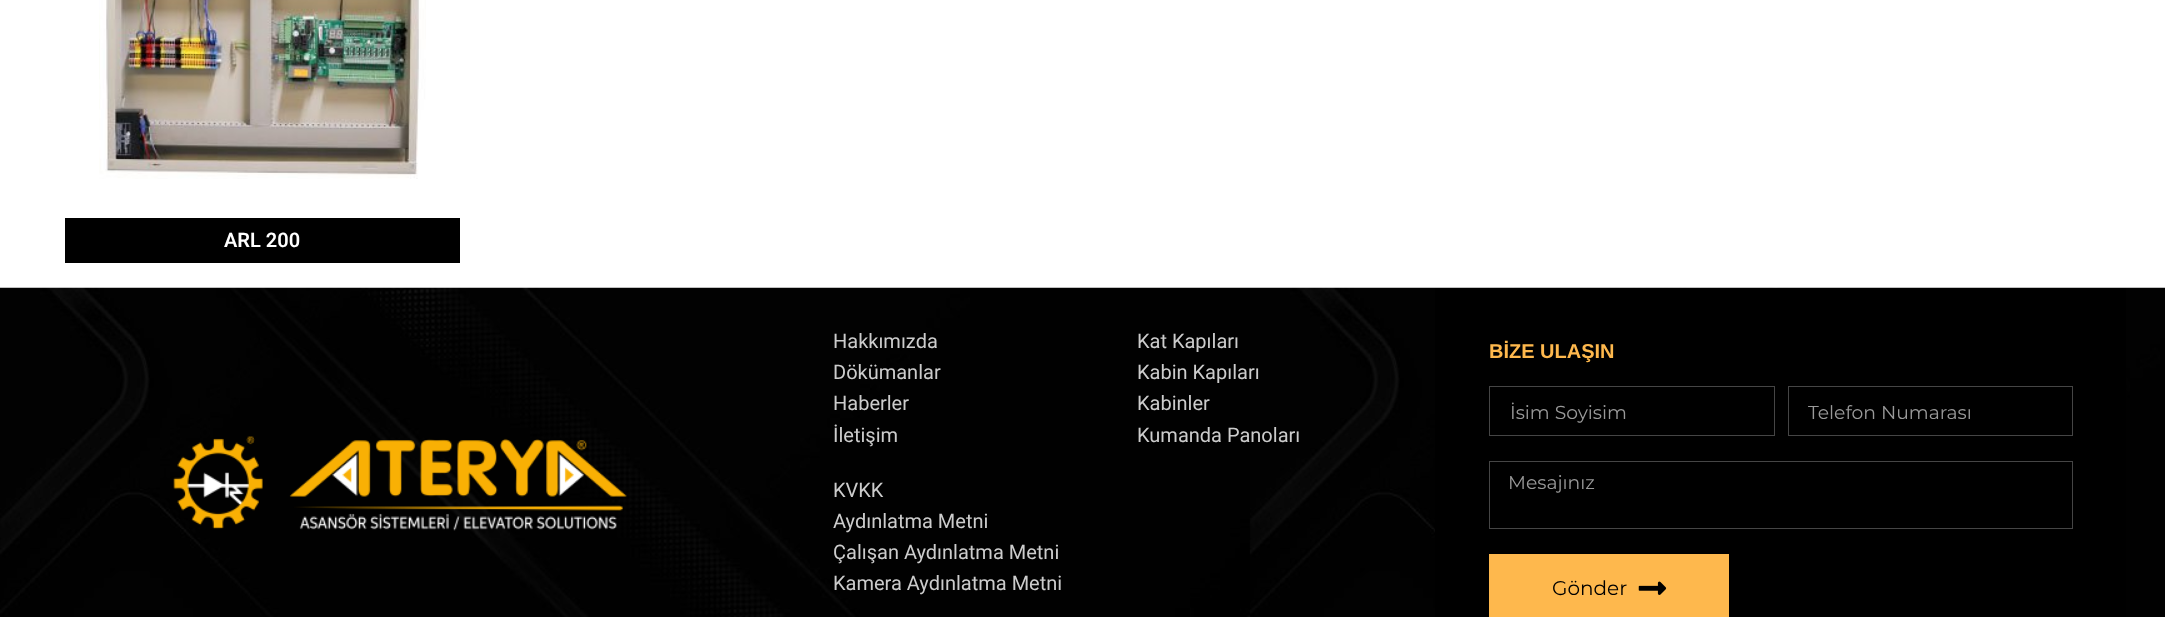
<svg xmlns="http://www.w3.org/2000/svg" width="2165" height="617" viewBox="0 0 2165 617">
  <rect width="100%" height="100%" fill="#ffffff"/>
  <image x="99" y="0" width="327" height="179" href="img1.png"/>
  <rect x="65" y="218" width="395" height="45" fill="#000000"/>
  <text x="224" y="247" font-family="Roboto" font-size="20" font-weight="600" fill="#ffffff">ARL 200</text>
  <image x="0" y="287" width="2165" height="330" href="img2.png"/>
  <image x="173" y="436" width="454" height="95" href="img3.png"/>
  <text x="833" y="348" font-family="Roboto" font-size="20" fill="#cccccc">Hakkımızda</text>
  <text x="833" y="379" font-family="Roboto" font-size="20" fill="#cccccc">Dökümanlar</text>
  <text x="833" y="410" font-family="Roboto" font-size="20" fill="#cccccc">Haberler</text>
  <text x="833" y="442" font-family="Roboto" font-size="20" fill="#cccccc">İletişim</text>
  <text x="1137" y="348" font-family="Roboto" font-size="20" fill="#cccccc">Kat Kapıları</text>
  <text x="1137" y="379" font-family="Roboto" font-size="20" fill="#cccccc">Kabin Kapıları</text>
  <text x="1137" y="410" font-family="Roboto" font-size="20" fill="#cccccc">Kabinler</text>
  <text x="1137" y="442" font-family="Roboto" font-size="20" fill="#cccccc">Kumanda Panoları</text>
  <text x="833" y="497" font-family="Roboto" font-size="20" fill="#cccccc">KVKK</text>
  <text x="833" y="528" font-family="Roboto" font-size="20" fill="#cccccc">Aydınlatma Metni</text>
  <text x="833" y="559" font-family="Roboto" font-size="20" fill="#cccccc">Çalışan Aydınlatma Metni</text>
  <text x="833" y="590" font-family="Roboto" font-size="20" fill="#cccccc">Kamera Aydınlatma Metni</text>
  <rect x="1435" y="288" width="691" height="329" fill="#000000"/>
  <text x="1489" y="358" font-family="Liberation Sans" font-size="20" font-weight="bold" fill="#feb84d">BİZE ULAŞIN</text>
  <rect x="1489.5" y="386.5" width="285" height="49" fill="none" stroke="#454545"/>
  <text x="1510" y="419" font-family="Montserrat" font-size="18.75" fill="#999999">İsim Soyisim</text>
  <rect x="1788.5" y="386.5" width="284" height="49" fill="none" stroke="#454545"/>
  <text x="1808" y="419" font-family="Montserrat" font-size="18.75" fill="#999999">Telefon Numarası</text>
  <rect x="1489.5" y="461.5" width="583" height="67" fill="none" stroke="#454545"/>
  <text x="1508" y="489" font-family="Montserrat" font-size="18.75" fill="#999999">Mesajınız</text>
  <rect x="1489" y="554" width="240" height="63" fill="#feb84d"/>
  <text x="1552" y="595" font-family="Montserrat" font-size="20" fill="#000000">Gönder</text>
  <image x="1638" y="581" width="29" height="14" href="img4.png"/>
</svg>
